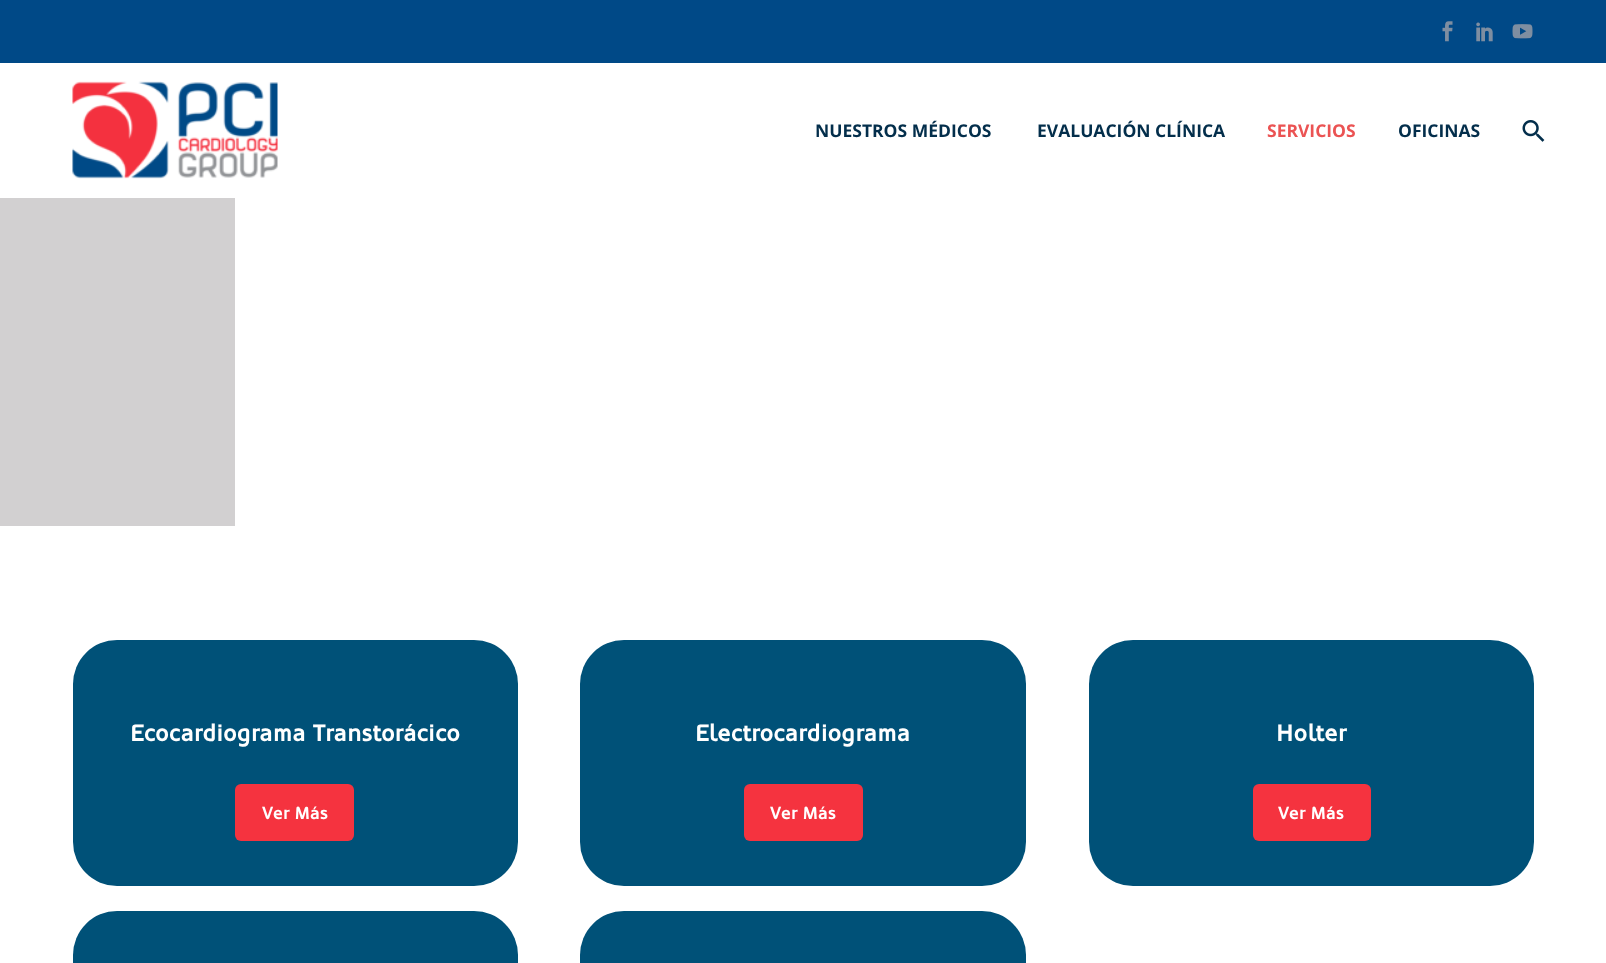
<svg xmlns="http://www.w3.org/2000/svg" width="1606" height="963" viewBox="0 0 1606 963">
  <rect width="100%" height="100%" fill="#004987"/>
  <image x="1442" y="21" width="11" height="21" href="img1.png"/>
  <image x="1476" y="22" width="17" height="20" href="img2.png"/>
  <image x="1512" y="24" width="21" height="15" href="img3.png"/>
  <rect x="0" y="63" width="1606" height="900" fill="#ffffff"/>
  <image x="72" y="81" width="206" height="98" href="img4.png"/>
  <text x="815" y="137" font-family="Open Sans" font-size="17.5" font-weight="bold" fill="#032e4b">NUESTROS MÉDICOS</text>
  <text x="1037" y="137" font-family="Open Sans" font-size="17.5" font-weight="bold" fill="#032e4b">EVALUACIÓN CLÍNICA</text>
  <text x="1267" y="137" font-family="Open Sans" font-size="17.5" font-weight="bold" fill="#eb5353">SERVICIOS</text>
  <text x="1398" y="137" font-family="Open Sans" font-size="17.5" font-weight="bold" fill="#032e4b">OFICINAS</text>
  <image x="1522" y="120" width="23" height="22" href="img5.png"/>
  <rect x="0" y="198" width="235" height="328" fill="#d2d0d1"/>
  <rect x="73" y="640" width="445" height="246" rx="44" fill="#005178"/>
  <text x="130" y="741" font-family="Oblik" font-size="23.75" font-weight="bold" fill="#ffffff">Ecocardiograma Transtorácico</text>
  <rect x="235" y="784" width="119" height="57" rx="6" fill="#f5333f"/>
  <text x="262" y="819" font-family="Oblik" font-size="17.5" font-weight="bold" fill="#ffffff">Ver Más</text>
  <rect x="580" y="640" width="446" height="246" rx="44" fill="#005178"/>
  <text x="695" y="741" font-family="Oblik" font-size="23.75" font-weight="bold" fill="#ffffff">Electrocardiograma</text>
  <rect x="744" y="784" width="119" height="57" rx="6" fill="#f5333f"/>
  <text x="770" y="819" font-family="Oblik" font-size="17.5" font-weight="bold" fill="#ffffff">Ver Más</text>
  <rect x="1089" y="640" width="445" height="246" rx="44" fill="#005178"/>
  <text x="1276" y="741" font-family="Oblik" font-size="23.75" font-weight="bold" fill="#ffffff">Holter</text>
  <rect x="1253" y="784" width="118" height="57" rx="6" fill="#f5333f"/>
  <text x="1278" y="819" font-family="Oblik" font-size="17.5" font-weight="bold" fill="#ffffff">Ver Más</text>
  <rect x="73" y="911" width="445" height="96" rx="44" fill="#005178"/>
  <rect x="580" y="911" width="446" height="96" rx="44" fill="#005178"/>
</svg>
